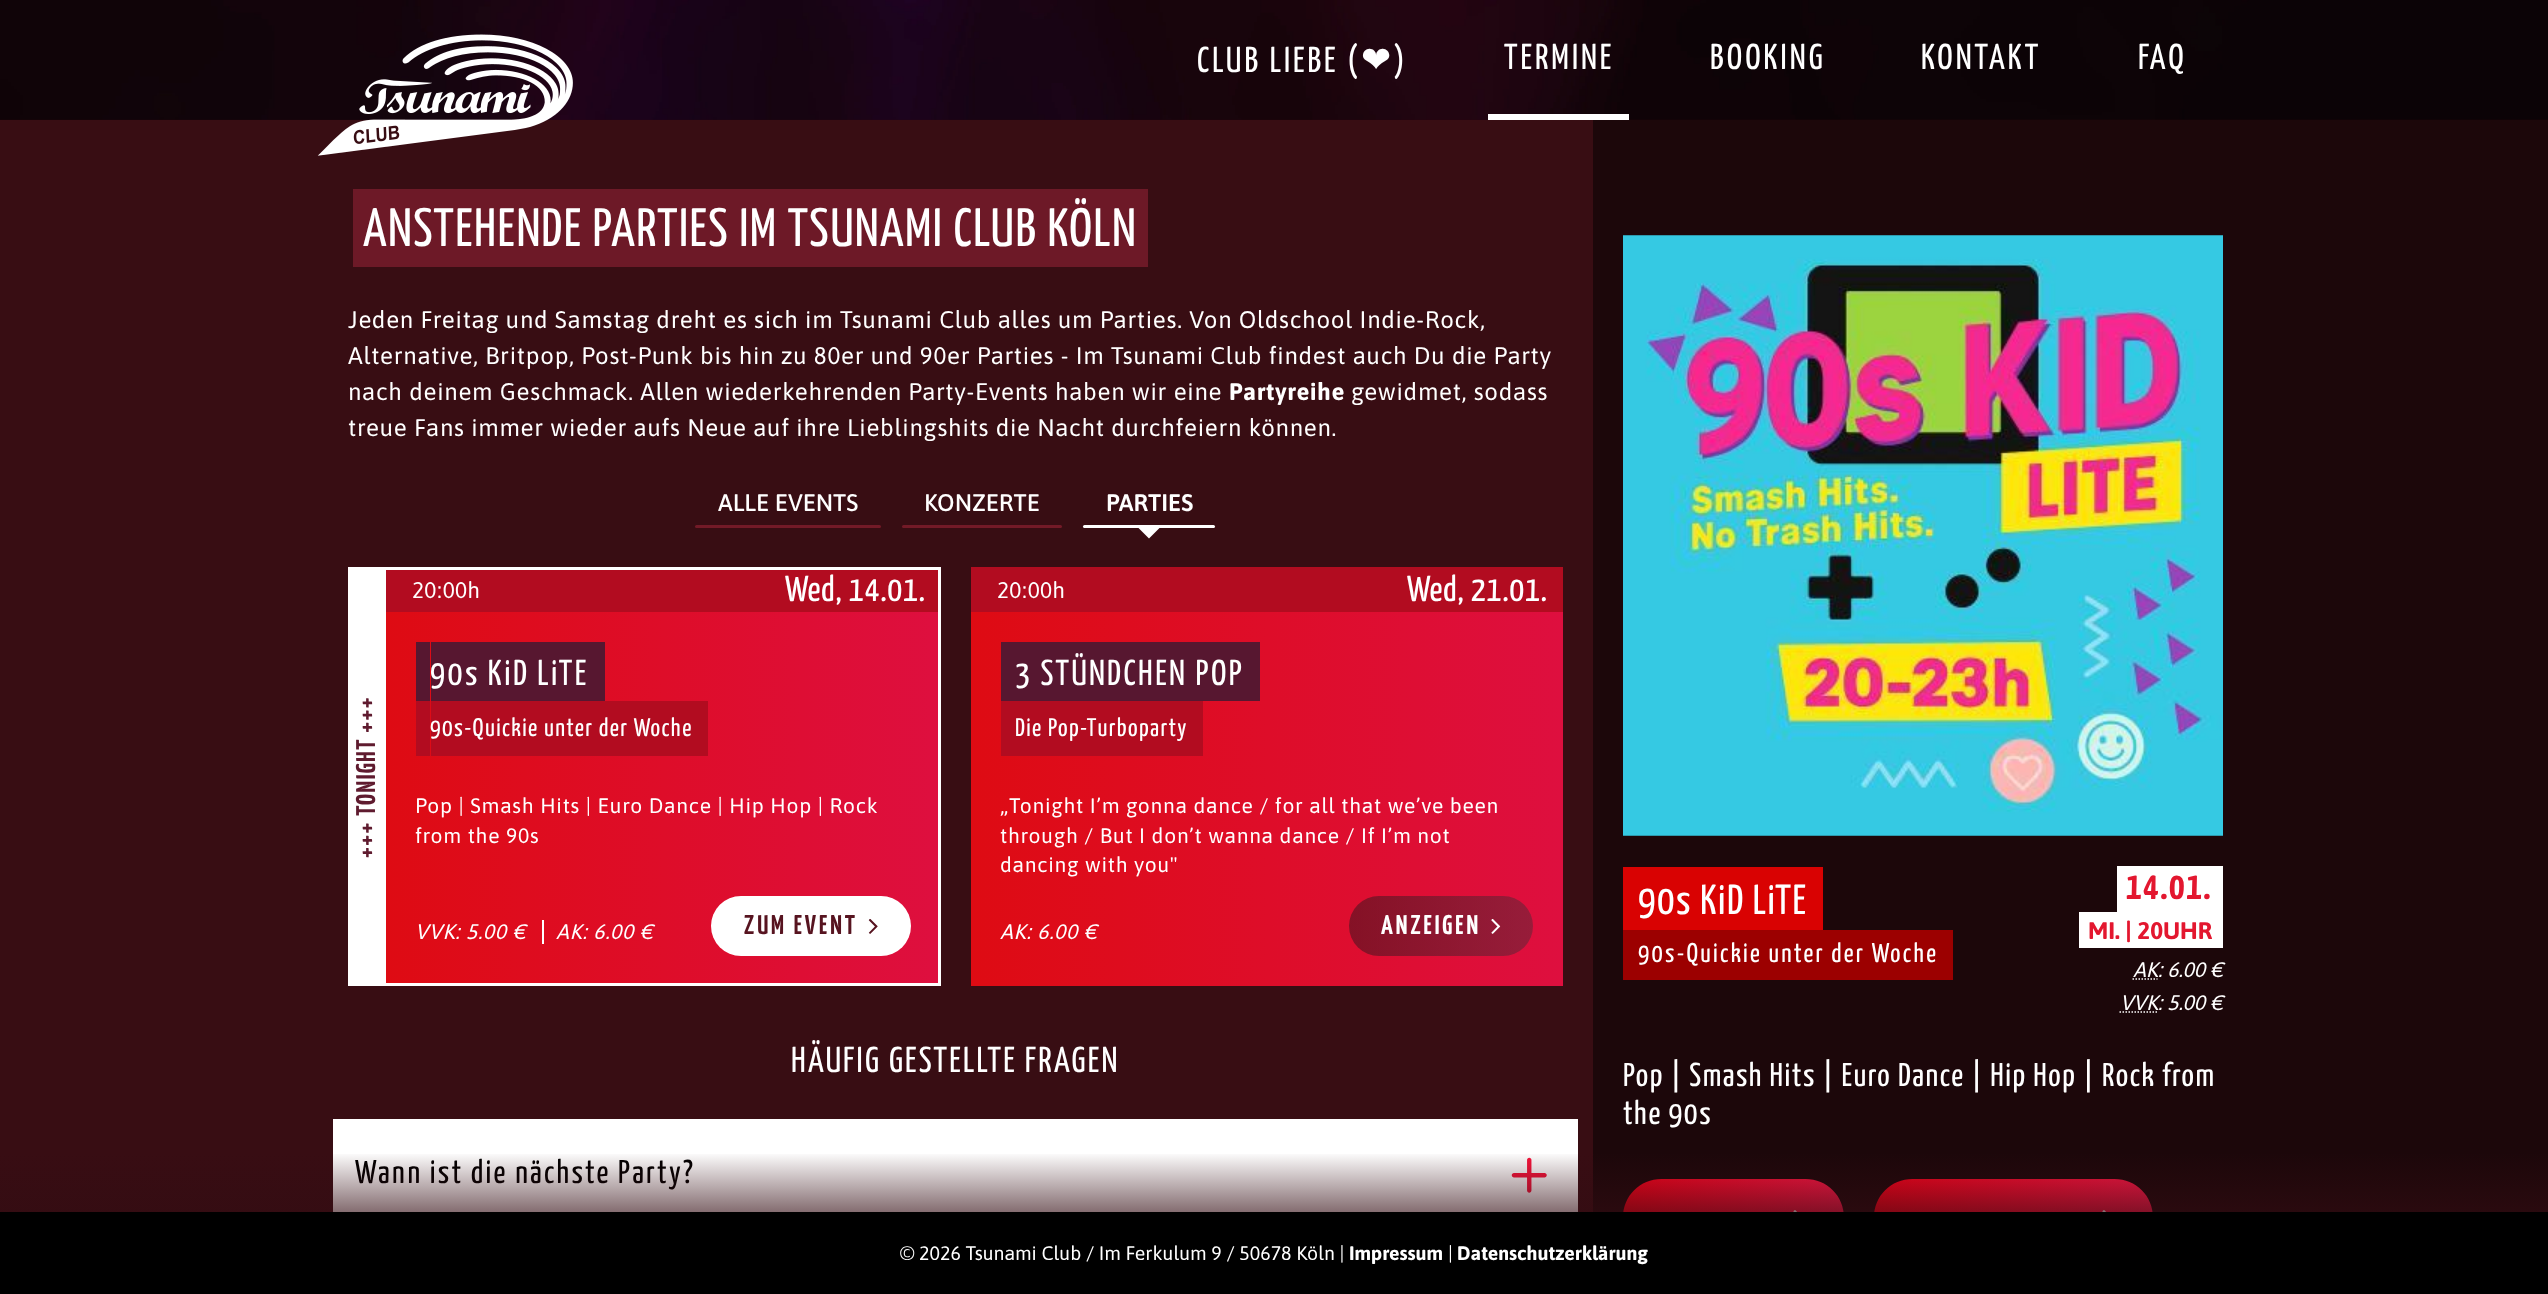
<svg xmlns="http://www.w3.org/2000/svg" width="2548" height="1294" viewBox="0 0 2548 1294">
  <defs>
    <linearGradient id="g1" gradientUnits="userSpaceOnUse" x1="386" y1="776" x2="941" y2="776"><stop offset="0" stop-color="#de0b13"/><stop offset="1" stop-color="#de0f3f"/></linearGradient>
    <linearGradient id="g2" gradientUnits="userSpaceOnUse" x1="971" y1="776" x2="1563" y2="776"><stop offset="0" stop-color="#de0b13"/><stop offset="1" stop-color="#de0f3f"/></linearGradient>
    <clipPath id="clip1"><rect x="1001" y="642" width="532" height="59"/></clipPath>
    <linearGradient id="g3" gradientUnits="userSpaceOnUse" x1="1349" y1="926" x2="1533" y2="926"><stop offset="0" stop-color="#18161a" stop-opacity="0.45"/><stop offset="1" stop-color="#402d37" stop-opacity="0.45"/></linearGradient>
    <linearGradient id="g4" gradientUnits="userSpaceOnUse" x1="1623" y1="1217" x2="1844" y2="1217"><stop offset="0" stop-color="#ff0018"/><stop offset="1" stop-color="#ff194a"/></linearGradient>
    <linearGradient id="g5" gradientUnits="userSpaceOnUse" x1="1874" y1="1217" x2="2153" y2="1217"><stop offset="0" stop-color="#ff0018"/><stop offset="1" stop-color="#ff194a"/></linearGradient>
    <linearGradient id="g6" gradientUnits="userSpaceOnUse" x1="1274" y1="1152" x2="1274" y2="1212"><stop offset="0" stop-color="#330c12" stop-opacity="0"/><stop offset="1" stop-color="#330c12" stop-opacity="0.6"/></linearGradient>
  </defs>
  <rect width="100%" height="100%" fill="#380d13"/>
  <image x="0" y="0" width="2548" height="120" href="img1.png"/>
  <image x="317" y="34" width="256" height="122" href="img2.png"/>
  <text x="1197" y="72" font-family="Yanone Kaffeesatz" font-size="36" letter-spacing="3" fill="#ffffff">CLUB LIEBE (</text>
  <text x="1361" y="72" font-family="DejaVu Sans" font-size="36" letter-spacing="3" fill="#ffffff">❤</text>
  <text x="1394" y="72" font-family="Yanone Kaffeesatz" font-size="36" letter-spacing="3" fill="#ffffff">)</text>
  <rect x="1488" y="114" width="141" height="6" fill="#ffffff"/>
  <text x="1504" y="69" font-family="Yanone Kaffeesatz" font-size="36" letter-spacing="3" fill="#ffffff">TERMINE</text>
  <text x="1710" y="69" font-family="Yanone Kaffeesatz" font-size="36" letter-spacing="3" fill="#ffffff">BOOKING</text>
  <text x="1921" y="69" font-family="Yanone Kaffeesatz" font-size="36" letter-spacing="3" fill="#ffffff">KONTAKT</text>
  <text x="2138" y="69" font-family="Yanone Kaffeesatz" font-size="36" letter-spacing="3" fill="#ffffff">FAQ</text>
  <rect x="353" y="189" width="784" height="78" fill="#6d1927"/>
  <text x="363" y="246" font-family="Yanone Kaffeesatz" font-size="54" letter-spacing="1.5" fill="#ffffff">ANSTEHENDE PARTIES IM TSUNAMI CLUB KÖLN</text>
  <rect x="1137" y="189" width="11" height="78" fill="#6d1927"/>
  <text x="348" y="328" font-family="Asap" font-size="24" letter-spacing="0.75" fill="#ffffff">Jeden Freitag und Samstag dreht es sich im Tsunami Club alles um Parties. Von Oldschool Indie-Rock,</text>
  <text x="348" y="364" font-family="Asap" font-size="24" letter-spacing="0.75" fill="#ffffff">Alternative, Britpop, Post-Punk bis hin zu 80er und 90er Parties - Im Tsunami Club findest auch Du die Party</text>
  <text x="348" y="400" font-family="Asap" font-size="24" letter-spacing="0.75" fill="#ffffff">nach deinem Geschmack. Allen wiederkehrenden Party-Events haben wir eine</text>
  <text x="1229" y="400" font-family="Asap" font-size="24" font-weight="bold" letter-spacing="0.75" fill="#ffffff">Partyreihe</text>
  <text x="1351" y="400" font-family="Asap" font-size="24" letter-spacing="0.75" fill="#ffffff">gewidmet, sodass</text>
  <text x="348" y="436" font-family="Asap" font-size="24" letter-spacing="0.75" fill="#ffffff">treue Fans immer wieder aufs Neue auf ihre Lieblingshits die Nacht durchfeiern können.</text>
  <text x="718" y="511" font-family="Asap" font-size="24" font-weight="500" fill="#ffffff">ALLE EVENTS</text>
  <rect x="695" y="525" width="186" height="3" rx="1.5" fill="#721a27"/>
  <text x="924" y="511" font-family="Asap" font-size="24" font-weight="500" fill="#ffffff">KONZERTE</text>
  <rect x="902" y="525" width="160" height="3" rx="1.5" fill="#721a27"/>
  <text x="1106" y="511" font-family="Asap" font-size="24" font-weight="600" fill="#ffffff">PARTIES</text>
  <rect x="1083" y="525" width="132" height="3" rx="1.5" fill="#ffffff"/>
  <path d="M1138.5 528H1159.5L1149 538.5Z" fill="#ffffff"/>
  <rect x="351" y="570" width="35" height="413" fill="#ffffff"/>
  <rect x="386" y="612" width="552" height="371" fill="url(#g1)"/>
  <rect x="386" y="570" width="552" height="42" fill="#b20c20"/>
  <path d="M446 704H605V642H590V704Z" fill="#571730"/>
  <path d="M416 642V704H575H430V642Z" fill="#571730"/>
  <rect x="431" y="642" width="159" height="59" fill="#571730"/>
  <rect x="431" y="701" width="277" height="55" fill="#b20c20"/>
  <rect x="416" y="701" width="14" height="55" fill="#b20c20"/>
  <rect x="542" y="920" width="2" height="24" fill="#ffffff"/>
  <rect x="711" y="896" width="200" height="60" rx="30" fill="#ffffff"/>
  <image x="868" y="919" width="10" height="15" href="img3.png"/>
  <rect x="349.5" y="568.5" width="590" height="416" fill="none" stroke="#ffffff" stroke-width="3"/>
  <text x="375" y="858" transform="rotate(-90 375 858)" font-family="Yanone Kaffeesatz" font-size="27" font-weight="bold" letter-spacing="1.5" fill="#5f1b2f">+++ TONIGHT +++</text>
  <text x="412" y="598" font-family="Asap" font-size="22.5" letter-spacing="0.25" fill="#ffffff">20:00h</text>
  <text x="785" y="601" font-family="Yanone Kaffeesatz" font-size="36" letter-spacing="0.6" fill="#ffffff">Wed, 14.01.</text>
  <text x="430" y="685" font-family="Yanone Kaffeesatz" font-size="36" letter-spacing="2.4" fill="#ffffff">90s KiD LiTE</text>
  <text x="430" y="736" font-family="Yanone Kaffeesatz" font-size="25.5" letter-spacing="1.35" fill="#ffffff">90s-Quickie unter der Woche</text>
  <text x="415" y="813" font-family="Asap" font-size="21" letter-spacing="0.75" fill="#ffffff">Pop | Smash Hits | Euro Dance | Hip Hop | Rock</text>
  <text x="415" y="843" font-family="Asap" font-size="21" letter-spacing="0.75" fill="#ffffff">from the 90s</text>
  <text x="415" y="939" font-family="Asap" font-size="21" font-style="italic" letter-spacing="0.75" fill="#ffffff">VVK: 5.00 €</text>
  <text x="556" y="939" font-family="Asap" font-size="21" font-style="italic" letter-spacing="0.75" fill="#ffffff">AK: 6.00 €</text>
  <text x="744" y="934" font-family="Yanone Kaffeesatz" font-size="27" font-weight="bold" letter-spacing="3" fill="#571420">ZUM EVENT</text>
  <rect x="971" y="612" width="592" height="374" fill="url(#g2)"/>
  <rect x="971" y="567" width="592" height="45" fill="#b20c20"/>
  <text x="997" y="598" font-family="Asap" font-size="22.5" letter-spacing="0.25" fill="#ffffff">20:00h</text>
  <text x="1407" y="601" font-family="Yanone Kaffeesatz" font-size="36" letter-spacing="0.6" fill="#ffffff">Wed, 21.01.</text>
  <rect x="1016" y="642" width="229" height="59" fill="#571730"/>
  <text x="1015" y="685" font-family="Yanone Kaffeesatz" font-size="36" letter-spacing="2.4" fill="#ffffff">3 STÜNDCHEN POP</text>
  <g clip-path="url(#clip1)">
    <path d="M1031 704H1260V642H1245V704Z" fill="#571730"/>
  </g>
  <path d="M1001 642V704H1230H1016V642Z" fill="#571730"/>
  <rect x="1001" y="701" width="187" height="55" fill="#b20c20"/>
  <text x="1015" y="736" font-family="Yanone Kaffeesatz" font-size="25.5" letter-spacing="1.35" fill="#ffffff">Die Pop-Turboparty</text>
  <rect x="1188" y="701" width="15" height="55" fill="#b20c20"/>
  <text x="1000" y="813" font-family="Asap" font-size="21" letter-spacing="0.75" fill="#ffffff">„Tonight I’m gonna dance / for all that we’ve been</text>
  <text x="1000" y="843" font-family="Asap" font-size="21" letter-spacing="0.75" fill="#ffffff">through / But I don’t wanna dance / If I’m not</text>
  <text x="1000" y="872" font-family="Asap" font-size="21" letter-spacing="0.75" fill="#ffffff">dancing with you"</text>
  <text x="1000" y="939" font-family="Asap" font-size="21" font-style="italic" letter-spacing="0.75" fill="#ffffff">AK: 6.00 €</text>
  <rect x="1349" y="896" width="184" height="60" rx="30" fill="url(#g3)"/>
  <text x="1381" y="934" font-family="Yanone Kaffeesatz" font-size="27" font-weight="bold" letter-spacing="3" fill="#ffffff">ANZEIGEN</text>
  <image x="1491" y="919" width="10" height="15" href="img4.png"/>
  <text x="791" y="1072" font-family="Yanone Kaffeesatz" font-size="36" letter-spacing="2.25" fill="#ffffff">HÄUFIG GESTELLTE FRAGEN</text>
  <rect x="333" y="1119" width="1245" height="93" fill="#ffffff"/>
  <text x="355" y="1183" font-family="Yanone Kaffeesatz" font-size="33" letter-spacing="2.25" fill="#000000">Wann ist die nächste Party?</text>
  <image x="1511" y="1157" width="36" height="36" href="img5.png"/>
  <rect x="1593" y="120" width="955" height="1092" fill="#1c070a"/>
  <image x="1623" y="235" width="600" height="601" href="img6.png"/>
  <image x="1623" y="235" width="600" height="601" href="img7.png"/>
  <rect x="1623" y="867" width="185" height="63" fill="#d90202"/>
  <text x="1638" y="914" font-family="Yanone Kaffeesatz" font-size="42" letter-spacing="1.5" fill="#ffffff">90s KiD LiTE</text>
  <rect x="1808" y="867" width="15" height="63" fill="#d90202"/>
  <rect x="1638" y="930" width="300" height="50" fill="#9c0000"/>
  <text x="1638" y="962" font-family="Yanone Kaffeesatz" font-size="27" letter-spacing="2.25" fill="#ffffff">90s-Quickie unter der Woche</text>
  <path d="M1653 980H1953V930H1938V980Z" fill="#9c0000"/>
  <path d="M1623 930V980H1923H1638V930Z" fill="#9c0000"/>
  <rect x="2117" y="866" width="106" height="46" fill="#ffffff"/>
  <text x="2126" y="899" font-family="Yanone Kaffeesatz" font-size="39" font-weight="bold" letter-spacing="1.5" fill="#e3172f">14.01.</text>
  <rect x="2079" y="912" width="144" height="36" fill="#ffffff"/>
  <text x="2088" y="939" font-family="Asap" font-size="24" font-weight="bold" fill="#e3172f">MI. | 20UHR</text>
  <text x="2133" y="977" font-family="Asap" font-size="21" font-style="italic" fill="#ffffff">AK: 6.00 €</text>
  <path d="M2132.5 979H2157.5" fill="none" stroke="#ffffff" stroke-width="1.5" stroke-dasharray="1.5 1.5"/>
  <text x="2120" y="1010" font-family="Asap" font-size="21" font-style="italic" fill="#ffffff">VVK: 5.00 €</text>
  <path d="M2119.5 1012H2157.5" fill="none" stroke="#ffffff" stroke-width="1.5" stroke-dasharray="1.5 1.5"/>
  <text x="1623" y="1086" font-family="Yanone Kaffeesatz" font-size="33" letter-spacing="1.5" fill="#ffffff">Pop | Smash Hits | Euro Dance | Hip Hop | Rock from</text>
  <text x="1623" y="1124" font-family="Yanone Kaffeesatz" font-size="33" letter-spacing="1.5" fill="#ffffff">the 90s</text>
  <path d="M1661.5 1179H1805.5C1827 1179 1844 1196 1844 1217.5V1212H1623V1217.5C1623 1196 1640 1179 1661.5 1179Z" fill="url(#g4)"/>
  <image x="1793" y="1210" width="4" height="2" href="img8.png"/>
  <path d="M1912.5 1179H2114.5C2136 1179 2153 1196 2153 1217.5V1212H1874V1217.5C1874 1196 1891 1179 1912.5 1179Z" fill="url(#g5)"/>
  <image x="2102" y="1210" width="4" height="2" href="img9.png"/>
  <rect x="0" y="1154" width="2548" height="58" fill="url(#g6)"/>
  <rect x="0" y="1212" width="2548" height="82" fill="#000000"/>
  <text x="900" y="1260" font-family="Asap" font-size="19.5" fill="#ffffff">© 2026 Tsunami Club / Im Ferkulum 9 / 50678 Köln |</text>
  <text x="1349" y="1260" font-family="Asap" font-size="19.5" font-weight="bold" fill="#ffffff">Impressum</text>
  <text x="1448" y="1260" font-family="Asap" font-size="19.5" fill="#ffffff">|</text>
  <text x="1457" y="1260" font-family="Asap" font-size="19.5" font-weight="bold" fill="#ffffff">Datenschutzerklärung</text>
</svg>
